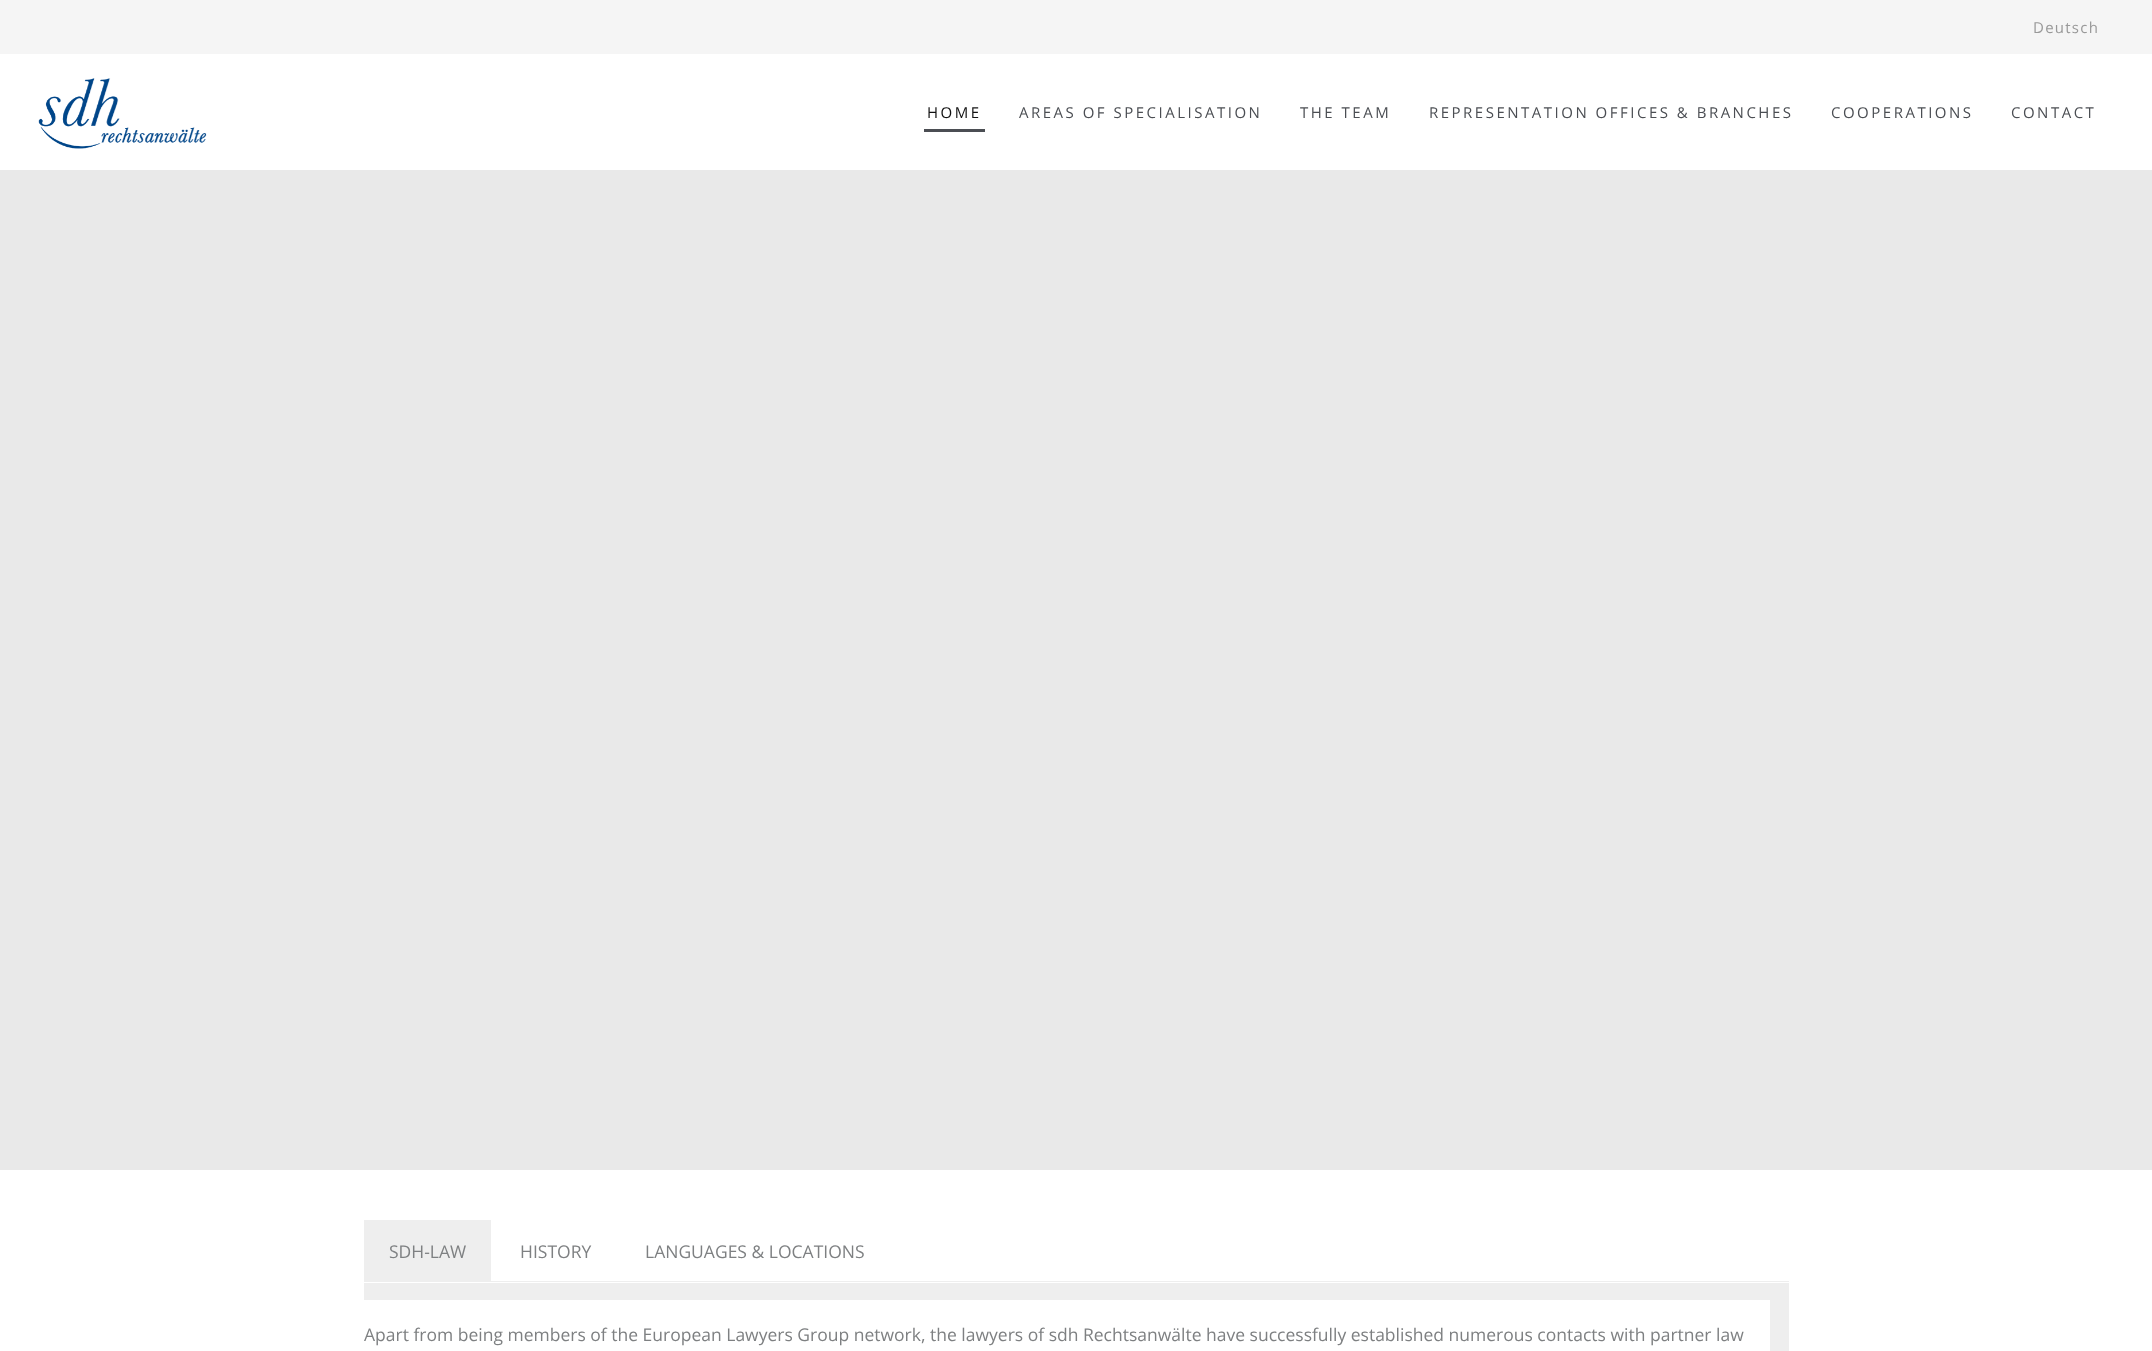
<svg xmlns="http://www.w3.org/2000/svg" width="2152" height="1351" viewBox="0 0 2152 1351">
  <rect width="100%" height="100%" fill="#ffffff"/>
  <rect x="0" y="0" width="2152" height="54" fill="#f5f5f5"/>
  <text x="2033" y="33" font-family="Open Sans" font-size="15" letter-spacing="1.25" fill="#999999">Deutsch</text>
  <image x="38" y="78" width="169" height="71" href="img1.png"/>
  <text x="927" y="118" font-family="Open Sans" font-size="15" letter-spacing="2.5" fill="#111111">HOME</text>
  <rect x="924" y="129" width="61" height="3" fill="#4b4e53"/>
  <text x="1019" y="118" font-family="Open Sans" font-size="15" letter-spacing="2.5" fill="#4b4e53">AREAS OF SPECIALISATION</text>
  <text x="1300" y="118" font-family="Open Sans" font-size="15" letter-spacing="2.5" fill="#4b4e53">THE TEAM</text>
  <text x="1429" y="118" font-family="Open Sans" font-size="15" letter-spacing="2.5" fill="#4b4e53">REPRESENTATION OFFICES &amp; BRANCHES</text>
  <text x="1831" y="118" font-family="Open Sans" font-size="15" letter-spacing="2.5" fill="#4b4e53">COOPERATIONS</text>
  <text x="2011" y="118" font-family="Open Sans" font-size="15" letter-spacing="2.5" fill="#4b4e53">CONTACT</text>
  <rect x="0" y="170" width="2152" height="1000" fill="#e9e9e9"/>
  <rect x="364" y="1281" width="1425" height="1" fill="#eeeeee"/>
  <rect x="364" y="1220" width="127" height="61" fill="#eeeeee"/>
  <text x="389" y="1258" font-family="Open Sans" font-size="17.5" fill="#7e8082">SDH-LAW</text>
  <text x="520" y="1258" font-family="Open Sans" font-size="17.5" fill="#7e8082">HISTORY</text>
  <text x="645" y="1258" font-family="Open Sans" font-size="17.5" fill="#7e8082">LANGUAGES &amp; LOCATIONS</text>
  <rect x="364" y="1283" width="1406" height="17" fill="#eeeeee"/>
  <rect x="1770" y="1283" width="19" height="68" fill="#eeeeee"/>
  <text x="364" y="1341" font-family="Open Sans" font-size="17.5" fill="#7e8082">Apart from being members of the European Lawyers Group network, the lawyers of sdh Rechtsanwälte have successfully established numerous contacts with partner law</text>
</svg>
